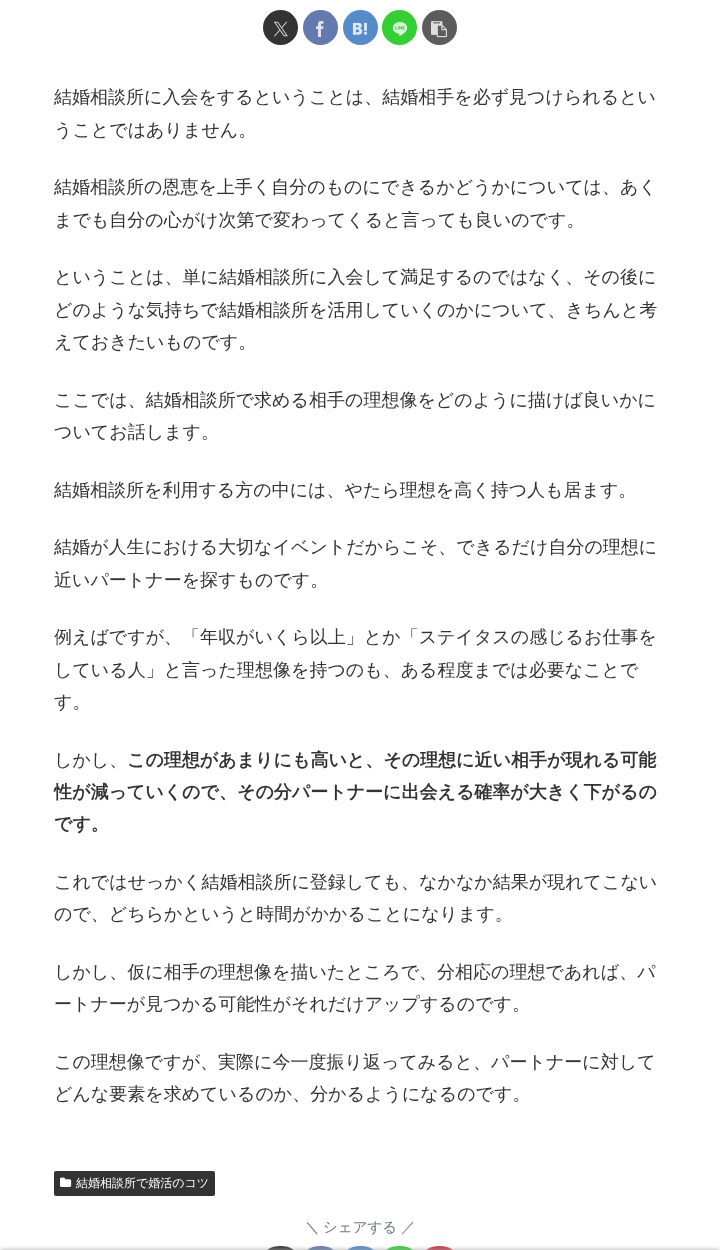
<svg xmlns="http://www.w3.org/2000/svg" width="720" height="1250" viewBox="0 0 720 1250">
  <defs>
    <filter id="blur1" x="-50%" y="-200%" width="200%" height="500%"><feGaussianBlur stdDeviation="2.5"/></filter>
  </defs>
  <rect width="100%" height="100%" fill="#ffffff"/>
  <circle cx="280.5" cy="27.5" r="17.5" fill="#333333"/>
  <image x="273" y="21" width="15" height="16" href="img1.png"/>
  <circle cx="320.5" cy="27.5" r="17.5" fill="#627aad"/>
  <image x="316" y="21" width="8" height="16" href="img2.png"/>
  <circle cx="360.5" cy="27.5" r="17.5" fill="#568bca"/>
  <image x="352" y="22" width="16" height="13" href="img3.png"/>
  <circle cx="399.5" cy="27.5" r="17.5" fill="#33cf33"/>
  <image x="392" y="22" width="16" height="14" href="img4.png"/>
  <circle cx="439.5" cy="27.5" r="17.5" fill="#5c5c5c"/>
  <image x="431" y="21" width="16" height="17" href="img5.png"/>
  <text x="54" y="103" font-family="WenQuanYi Zen Hei" font-size="18" font-weight="500" fill="#333333">結婚相談所に入会をするということは、結婚相手を必ず見つけられるとい</text>
  <text x="54" y="136" font-family="WenQuanYi Zen Hei" font-size="18" font-weight="500" fill="#333333">うことではありません。</text>
  <text x="54" y="193" font-family="WenQuanYi Zen Hei" font-size="18" font-weight="500" fill="#333333">結婚相談所の恩恵を上手く自分のものにできるかどうかについては、あく</text>
  <text x="54" y="226" font-family="WenQuanYi Zen Hei" font-size="18" font-weight="500" fill="#333333">までも自分の心がけ次第で変わってくると言っても良いのです。</text>
  <text x="54" y="283" font-family="WenQuanYi Zen Hei" font-size="18" font-weight="500" fill="#333333">ということは、単に結婚相談所に入会して満足するのではなく、その後に</text>
  <text x="54" y="316" font-family="WenQuanYi Zen Hei" font-size="18" font-weight="500" fill="#333333">どのような気持ちで結婚相談所を活用していくのかについて、きちんと考</text>
  <text x="54" y="348" font-family="WenQuanYi Zen Hei" font-size="18" font-weight="500" fill="#333333">えておきたいものです。</text>
  <text x="54" y="406" font-family="WenQuanYi Zen Hei" font-size="18" font-weight="500" fill="#333333">ここでは、結婚相談所で求める相手の理想像をどのように描けば良いかに</text>
  <text x="54" y="438" font-family="WenQuanYi Zen Hei" font-size="18" font-weight="500" fill="#333333">ついてお話します。</text>
  <text x="54" y="496" font-family="WenQuanYi Zen Hei" font-size="18" font-weight="500" fill="#333333">結婚相談所を利用する方の中には、やたら理想を高く持つ人も居ます。</text>
  <text x="54" y="553" font-family="WenQuanYi Zen Hei" font-size="18" font-weight="500" fill="#333333">結婚が人生における大切なイベントだからこそ、できるだけ自分の理想に</text>
  <text x="54" y="586" font-family="WenQuanYi Zen Hei" font-size="18" font-weight="500" fill="#333333">近いパートナーを探すものです。</text>
  <text x="54" y="643" font-family="WenQuanYi Zen Hei" font-size="18" font-weight="500" fill="#333333">例えばですが、「年収がいくら以上」とか「ステイタスの感じるお仕事を</text>
  <text x="54" y="676" font-family="WenQuanYi Zen Hei" font-size="18" font-weight="500" fill="#333333">している人」と言った理想像を持つのも、ある程度までは必要なことで</text>
  <text x="54" y="708" font-family="WenQuanYi Zen Hei" font-size="18" font-weight="500" fill="#333333">す。</text>
  <text x="54" y="766" font-family="WenQuanYi Zen Hei" font-size="18" font-weight="500" fill="#333333">しかし、</text>
  <text x="127" y="766" font-family="WenQuanYi Zen Hei" font-size="18" font-weight="bold" fill="#333333">この理想があまりにも高いと、その理想に近い相手が現れる可能</text>
  <text x="54" y="798" font-family="WenQuanYi Zen Hei" font-size="18" font-weight="bold" fill="#333333">性が減っていくので、その分パートナーに出会える確率が大きく下がるの</text>
  <text x="54" y="830" font-family="WenQuanYi Zen Hei" font-size="18" font-weight="bold" fill="#333333">です。</text>
  <text x="54" y="888" font-family="WenQuanYi Zen Hei" font-size="18" font-weight="500" fill="#333333">これではせっかく結婚相談所に登録しても、なかなか結果が現れてこない</text>
  <text x="54" y="920" font-family="WenQuanYi Zen Hei" font-size="18" font-weight="500" fill="#333333">ので、どちらかというと時間がかかることになります。</text>
  <text x="54" y="978" font-family="WenQuanYi Zen Hei" font-size="18" font-weight="500" fill="#333333">しかし、仮に相手の理想像を描いたところで、分相応の理想であれば、パ</text>
  <text x="54" y="1010" font-family="WenQuanYi Zen Hei" font-size="18" font-weight="500" fill="#333333">ートナーが見つかる可能性がそれだけアップするのです。</text>
  <text x="54" y="1068" font-family="WenQuanYi Zen Hei" font-size="18" font-weight="500" fill="#333333">この理想像ですが、実際に今一度振り返ってみると、パートナーに対して</text>
  <text x="54" y="1100" font-family="WenQuanYi Zen Hei" font-size="18" font-weight="500" fill="#333333">どんな要素を求めているのか、分かるようになるのです。</text>
  <rect x="54" y="1171" width="161" height="25" rx="2" fill="#333333"/>
  <image x="60" y="1177" width="12" height="10" href="img6.png"/>
  <text x="76" y="1187" font-family="WenQuanYi Zen Hei" font-size="12" font-weight="500" fill="#ffffff">結婚相談所で婚活のコツ</text>
  <text x="305" y="1232" font-family="WenQuanYi Zen Hei" font-size="14.5" font-weight="500" fill="#69788a">＼</text>
  <text x="323" y="1232" font-family="WenQuanYi Zen Hei" font-size="14.5" font-weight="500" fill="#69788a">シェアする</text>
  <text x="401" y="1232" font-family="WenQuanYi Zen Hei" font-size="14.5" font-weight="500" fill="#69788a">／</text>
  <rect x="263" y="1246" width="35" height="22" rx="17.5" fill="#333333"/>
  <rect x="303" y="1246" width="35" height="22" rx="17.5" fill="#627aad"/>
  <rect x="343" y="1246" width="35" height="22" rx="17.5" fill="#568bca"/>
  <rect x="382" y="1246" width="35" height="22" rx="17.5" fill="#33cf33"/>
  <rect x="422" y="1246" width="35" height="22" rx="17.5" fill="#ca3949"/>
  <rect x="0" y="1250" width="720" height="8" fill="#a9a9a9" filter="url(#blur1)"/>
</svg>
